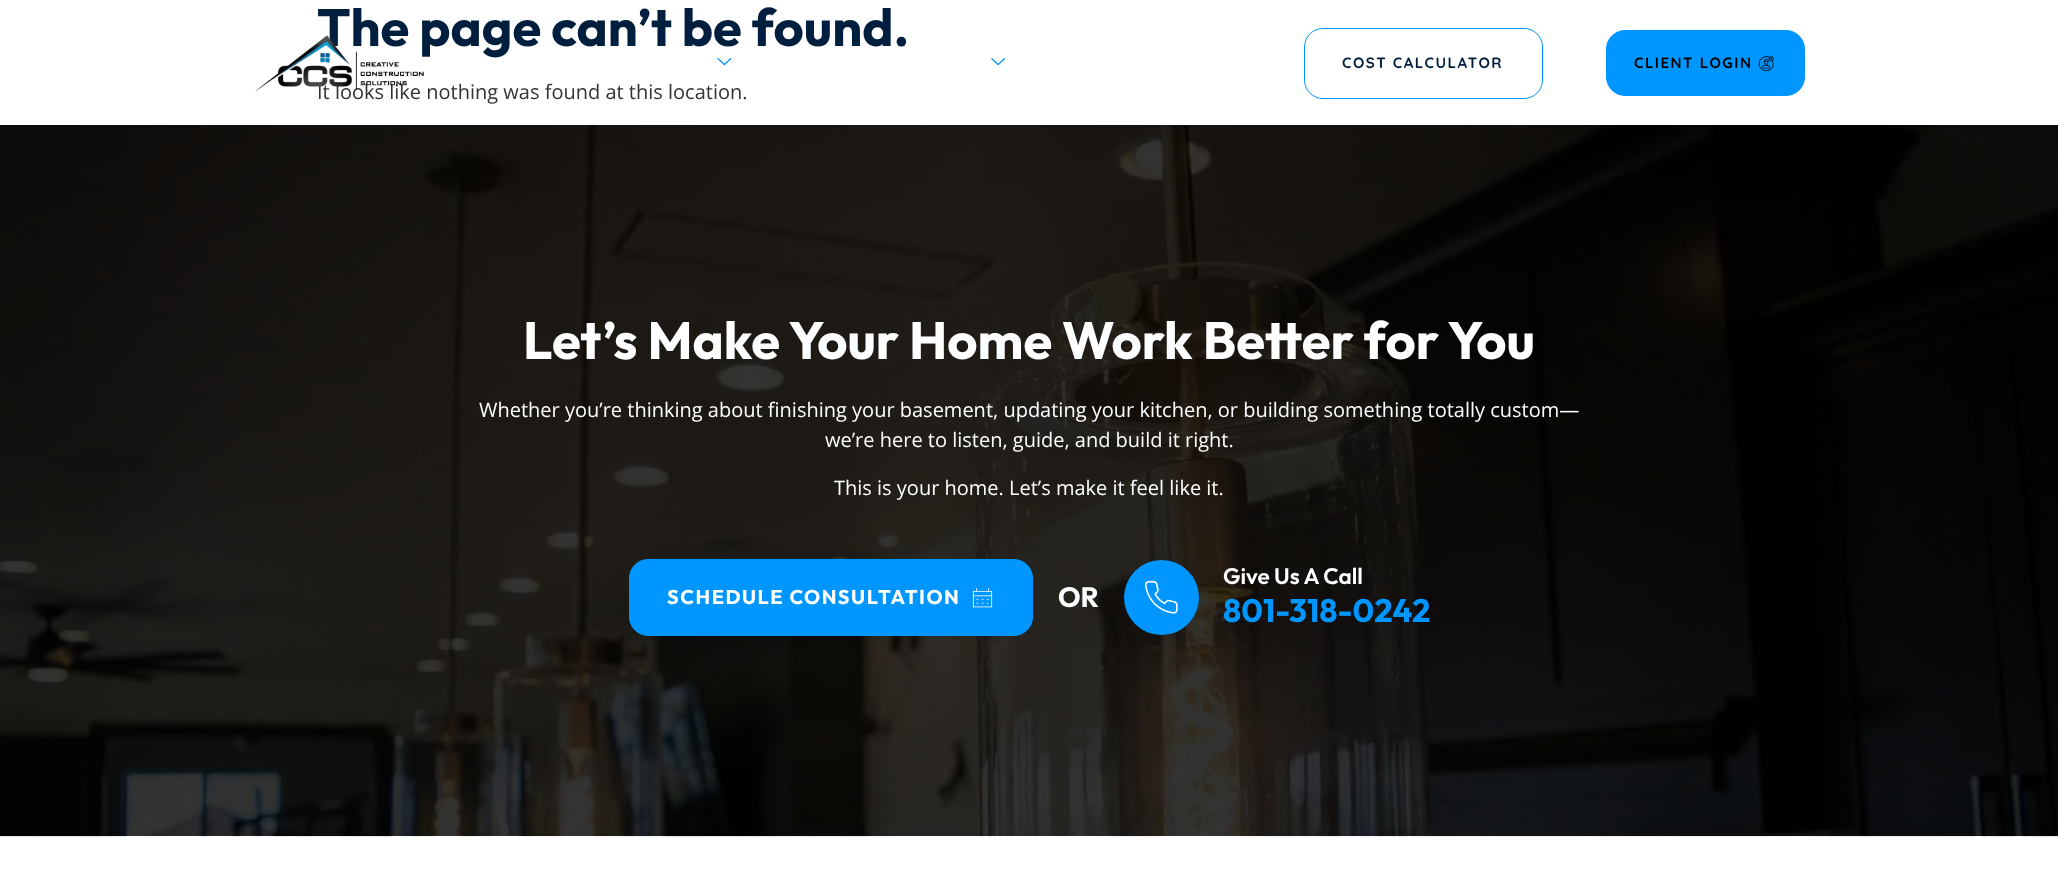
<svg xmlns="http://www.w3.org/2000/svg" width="2058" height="891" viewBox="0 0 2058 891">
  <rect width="100%" height="100%" fill="#ffffff"/>
  <text x="317" y="46" font-family="Outfit" font-size="52.5" font-weight="bold" fill="#001f3f">The page can’t be found.</text>
  <text x="317" y="99" font-family="Open Sans" font-size="20" fill="#333333">It looks like nothing was found at this location.</text>
  <image x="255" y="35" width="169" height="57" href="img1.png"/>
  <image x="717" y="58" width="15" height="8" href="img2.png"/>
  <image x="991" y="58" width="14" height="8" href="img3.png"/>
  <rect x="1304.5" y="28.5" width="238" height="70" rx="18.5" fill="none" stroke="#0096ff"/>
  <text x="1342" y="68" font-family="Quicksand" font-size="15" font-weight="bold" letter-spacing="1.5" fill="#001f3f">COST CALCULATOR</text>
  <rect x="1606.5" y="30.5" width="198" height="65" rx="18.5" fill="#0096ff" stroke="#0096ff"/>
  <text x="1634" y="68" font-family="Quicksand" font-size="15" font-weight="bold" letter-spacing="1.5" fill="#000000">CLIENT LOGIN</text>
  <image x="1758" y="56" width="16" height="16" href="img4.png"/>
  <image x="0" y="125" width="2058" height="712" href="img5.png"/>
  <text x="523" y="359" font-family="Outfit" font-size="52.5" font-weight="bold" fill="#ffffff">Let’s Make Your Home Work Better for You</text>
  <text x="479" y="417" font-family="Open Sans" font-size="20" fill="#ffffff">Whether you’re thinking about finishing your basement, updating your kitchen, or building something totally custom—</text>
  <text x="825" y="447" font-family="Open Sans" font-size="20" fill="#ffffff">we’re here to listen, guide, and build it right.</text>
  <text x="834" y="495" font-family="Open Sans" font-size="20" fill="#ffffff">This is your home. Let’s make it feel like it.</text>
  <rect x="629.5" y="559.5" width="403" height="76" rx="18.5" fill="#0096ff" stroke="#0096ff"/>
  <text x="667" y="604" font-family="Outfit" font-size="20" font-weight="bold" letter-spacing="1.5" fill="#ffffff">SCHEDULE CONSULTATION</text>
  <image x="972" y="588" width="21" height="20" href="img6.png"/>
  <text x="1058" y="607" font-family="Outfit" font-size="28" font-weight="bold" fill="#ffffff">OR</text>
  <circle cx="1161.5" cy="597.5" r="37.5" fill="#0096ff"/>
  <image x="1145" y="580" width="33" height="34" href="img7.png"/>
  <text x="1223" y="584" font-family="Outfit" font-size="22.5" font-weight="600" fill="#ffffff">Give Us A Call</text>
  <text x="1223" y="622" font-family="Outfit" font-size="32.5" font-weight="bold" fill="#0096ff">801-318-0242</text>
  <rect x="0" y="836" width="2058" height="1" fill="#ffffff" fill-opacity="0.9"/>
</svg>
